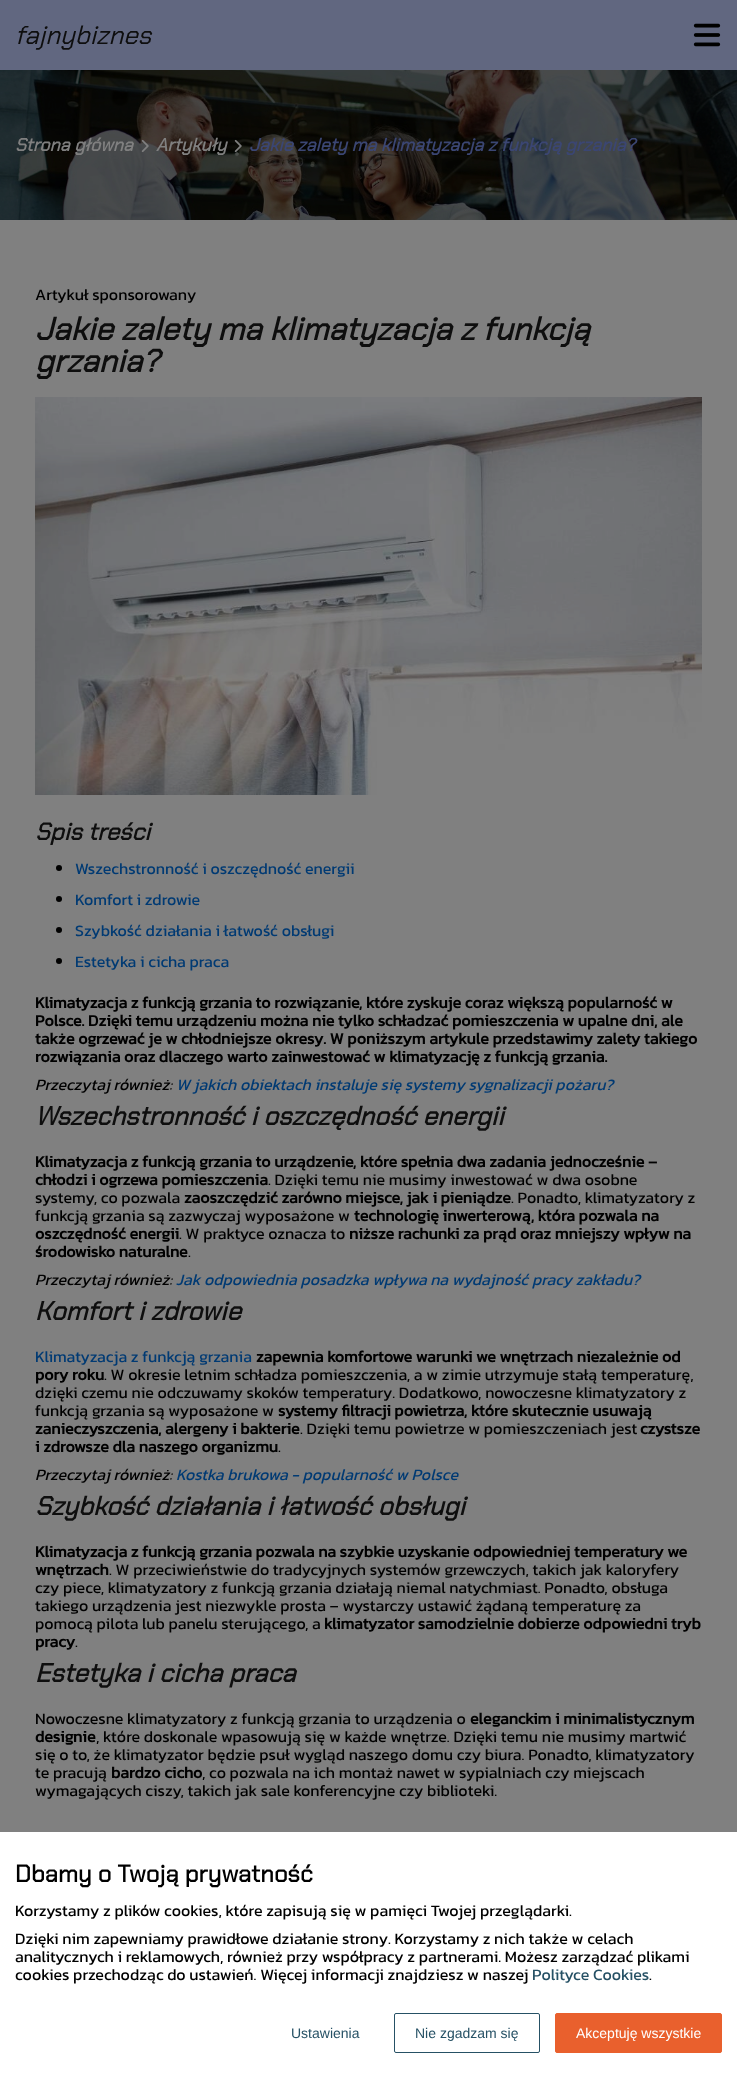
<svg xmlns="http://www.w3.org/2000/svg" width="737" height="2083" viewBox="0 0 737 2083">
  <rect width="100%" height="100%" fill="#808080"/>
  <rect x="0" y="0" width="737" height="70" fill="#616780"/>
  <text x="15" y="44" font-family="Chakra Petch" font-size="26" font-style="italic" fill="#0e0e0e">fajnybiznes</text>
  <image x="693" y="23" width="28" height="24" href="img1.png"/>
  <image x="0" y="70" width="737" height="150" href="img2.png"/>
  <text x="15" y="151" font-family="Chakra Petch" font-size="18" font-weight="bold" font-style="italic" fill="#808080">Strona główna</text>
  <image x="141" y="139" width="8" height="14" href="img3.png"/>
  <text x="156" y="151" font-family="Chakra Petch" font-size="18" font-weight="bold" font-style="italic" fill="#808080">Artykuły</text>
  <image x="234" y="139" width="8" height="14" href="img4.png"/>
  <text x="249" y="151" font-family="Chakra Petch" font-size="18" font-weight="bold" font-style="italic" fill="#3b4673">Jakie zalety ma klimatyzacja z funkcją grzania?</text>
  <text x="35" y="300" font-family="Kanit" font-size="16" fill="#000000">Artykuł sponsorowany</text>
  <text x="35" y="340" font-family="Chakra Petch" font-size="32" font-weight="bold" font-style="italic" fill="#0e0e0e">Jakie zalety ma klimatyzacja z funkcją</text>
  <text x="35" y="372" font-family="Chakra Petch" font-size="32" font-weight="bold" font-style="italic" fill="#0e0e0e">grzania?</text>
  <image x="35" y="397" width="667" height="398" href="img5.png"/>
  <text x="35" y="840" font-family="Chakra Petch" font-size="24" font-weight="bold" font-style="italic" fill="#0e0e0e">Spis treści</text>
  <circle cx="59" cy="868" r="3" fill="#000000"/>
  <text x="75" y="874" font-family="Kanit" font-size="16" fill="#003a73">Wszechstronność i oszczędność energii</text>
  <circle cx="59" cy="899" r="3" fill="#000000"/>
  <text x="75" y="905" font-family="Kanit" font-size="16" fill="#003a73">Komfort i zdrowie</text>
  <circle cx="59" cy="930" r="3" fill="#000000"/>
  <text x="75" y="936" font-family="Kanit" font-size="16" fill="#003a73">Szybkość działania i łatwość obsługi</text>
  <circle cx="59" cy="961" r="3" fill="#000000"/>
  <text x="75" y="967" font-family="Kanit" font-size="16" fill="#003a73">Estetyka i cicha praca</text>
  <text x="35" y="1008" font-family="Kanit" font-size="16" font-weight="bold" fill="#000000">Klimatyzacja z funkcją grzania to rozwiązanie, które zyskuje coraz większą popularność w</text>
  <text x="35" y="1026" font-family="Kanit" font-size="16" font-weight="bold" fill="#000000">Polsce. Dzięki temu urządzeniu można nie tylko schładzać pomieszczenia w upalne dni, ale</text>
  <text x="35" y="1044" font-family="Kanit" font-size="16" font-weight="bold" fill="#000000">także ogrzewać je w chłodniejsze okresy. W poniższym artykule przedstawimy zalety takiego</text>
  <text x="35" y="1062" font-family="Kanit" font-size="16" font-weight="bold" fill="#000000">rozwiązania oraz dlaczego warto zainwestować w klimatyzację z funkcją grzania.</text>
  <text x="35" y="1090" font-family="Kanit" font-size="16" font-style="italic" fill="#000000">Przeczytaj również:</text>
  <text x="176" y="1090" font-family="Kanit" font-size="16" font-style="italic" fill="#003a73">W jakich obiektach instaluje się systemy sygnalizacji pożaru?</text>
  <text x="35" y="1125" font-family="Chakra Petch" font-size="26" font-weight="bold" font-style="italic" fill="#0e0e0e">Wszechstronność i oszczędność energii</text>
  <text x="35" y="1167" font-family="Kanit" font-size="16" font-weight="bold" fill="#000000">Klimatyzacja z funkcją grzania to urządzenie, które spełnia dwa zadania jednocześnie –</text>
  <text x="35" y="1185" font-family="Kanit" font-size="16" font-weight="bold" fill="#000000">chłodzi i ogrzewa pomieszczenia</text>
  <text x="268" y="1185" font-family="Kanit" font-size="16" fill="#000000">. Dzięki temu nie musimy inwestować w dwa osobne</text>
  <text x="35" y="1203" font-family="Kanit" font-size="16" fill="#000000">systemy, co pozwala</text>
  <text x="184" y="1203" font-family="Kanit" font-size="16" font-weight="bold" fill="#000000">zaoszczędzić zarówno miejsce, jak i pieniądze</text>
  <text x="511" y="1203" font-family="Kanit" font-size="16" fill="#000000">. Ponadto, klimatyzatory z</text>
  <text x="35" y="1221" font-family="Kanit" font-size="16" fill="#000000">funkcją grzania są zazwyczaj wyposażone w</text>
  <text x="354" y="1221" font-family="Kanit" font-size="16" font-weight="bold" fill="#000000">technologię inwerterową, która pozwala na</text>
  <text x="35" y="1239" font-family="Kanit" font-size="16" font-weight="bold" fill="#000000">oszczędność energii</text>
  <text x="179" y="1239" font-family="Kanit" font-size="16" fill="#000000">. W praktyce oznacza to</text>
  <text x="349" y="1239" font-family="Kanit" font-size="16" font-weight="bold" fill="#000000">niższe rachunki za prąd oraz mniejszy wpływ na</text>
  <text x="35" y="1257" font-family="Kanit" font-size="16" font-weight="bold" fill="#000000">środowisko naturalne</text>
  <text x="188" y="1257" font-family="Kanit" font-size="16" fill="#000000">.</text>
  <text x="35" y="1285" font-family="Kanit" font-size="16" font-style="italic" fill="#000000">Przeczytaj również:</text>
  <text x="176" y="1285" font-family="Kanit" font-size="16" font-style="italic" fill="#003a73">Jak odpowiednia posadzka wpływa na wydajność pracy zakładu?</text>
  <text x="35" y="1320" font-family="Chakra Petch" font-size="26" font-weight="bold" font-style="italic" fill="#0e0e0e">Komfort i zdrowie</text>
  <text x="35" y="1362" font-family="Kanit" font-size="16" fill="#003a73">Klimatyzacja z funkcją grzania</text>
  <text x="256" y="1362" font-family="Kanit" font-size="16" font-weight="bold" fill="#000000">zapewnia komfortowe warunki we wnętrzach niezależnie od</text>
  <text x="35" y="1380" font-family="Kanit" font-size="16" font-weight="bold" fill="#000000">pory roku</text>
  <text x="104" y="1380" font-family="Kanit" font-size="16" fill="#000000">. W okresie letnim schładza pomieszczenia, a w zimie utrzymuje stałą temperaturę,</text>
  <text x="35" y="1398" font-family="Kanit" font-size="16" fill="#000000">dzięki czemu nie odczuwamy skoków temperatury. Dodatkowo, nowoczesne klimatyzatory z</text>
  <text x="35" y="1416" font-family="Kanit" font-size="16" fill="#000000">funkcją grzania są wyposażone w</text>
  <text x="278" y="1416" font-family="Kanit" font-size="16" font-weight="bold" fill="#000000">systemy filtracji powietrza, które skutecznie usuwają</text>
  <text x="35" y="1434" font-family="Kanit" font-size="16" font-weight="bold" fill="#000000">zanieczyszczenia, alergeny i bakterie</text>
  <text x="300" y="1434" font-family="Kanit" font-size="16" fill="#000000">. Dzięki temu powietrze w pomieszczeniach jest</text>
  <text x="640" y="1434" font-family="Kanit" font-size="16" font-weight="bold" fill="#000000">czystsze</text>
  <text x="35" y="1452" font-family="Kanit" font-size="16" font-weight="bold" fill="#000000">i zdrowsze dla naszego organizmu</text>
  <text x="278" y="1452" font-family="Kanit" font-size="16" fill="#000000">.</text>
  <text x="35" y="1480" font-family="Kanit" font-size="16" font-style="italic" fill="#000000">Przeczytaj również:</text>
  <text x="176" y="1480" font-family="Kanit" font-size="16" font-style="italic" fill="#003a73">Kostka brukowa - popularność w Polsce</text>
  <text x="35" y="1515" font-family="Chakra Petch" font-size="26" font-weight="bold" font-style="italic" fill="#0e0e0e">Szybkość działania i łatwość obsługi</text>
  <text x="35" y="1557" font-family="Kanit" font-size="16" font-weight="bold" fill="#000000">Klimatyzacja z funkcją grzania pozwala na szybkie uzyskanie odpowiedniej temperatury we</text>
  <text x="35" y="1575" font-family="Kanit" font-size="16" font-weight="bold" fill="#000000">wnętrzach</text>
  <text x="109" y="1575" font-family="Kanit" font-size="16" fill="#000000">. W przeciwieństwie do tradycyjnych systemów grzewczych, takich jak kaloryfery</text>
  <text x="35" y="1593" font-family="Kanit" font-size="16" fill="#000000">czy piece, klimatyzatory z funkcją grzania działają niemal natychmiast. Ponadto, obsługa</text>
  <text x="35" y="1611" font-family="Kanit" font-size="16" fill="#000000">takiego urządzenia jest niezwykle prosta – wystarczy ustawić żądaną temperaturę za</text>
  <text x="35" y="1629" font-family="Kanit" font-size="16" fill="#000000">pomocą pilota lub panelu sterującego, a</text>
  <text x="324" y="1629" font-family="Kanit" font-size="16" font-weight="bold" fill="#000000">klimatyzator samodzielnie dobierze odpowiedni tryb</text>
  <text x="35" y="1647" font-family="Kanit" font-size="16" font-weight="bold" fill="#000000">pracy</text>
  <text x="75" y="1647" font-family="Kanit" font-size="16" fill="#000000">.</text>
  <text x="35" y="1682" font-family="Chakra Petch" font-size="26" font-weight="bold" font-style="italic" fill="#0e0e0e">Estetyka i cicha praca</text>
  <text x="35" y="1724" font-family="Kanit" font-size="16" fill="#000000">Nowoczesne klimatyzatory z funkcją grzania to urządzenia o</text>
  <text x="470" y="1724" font-family="Kanit" font-size="16" font-weight="bold" fill="#000000">eleganckim i minimalistycznym</text>
  <text x="35" y="1742" font-family="Kanit" font-size="16" font-weight="bold" fill="#000000">designie</text>
  <text x="96" y="1742" font-family="Kanit" font-size="16" fill="#000000">, które doskonale wpasowują się w każde wnętrze. Dzięki temu nie musimy martwić</text>
  <text x="35" y="1760" font-family="Kanit" font-size="16" fill="#000000">się o to, że klimatyzator będzie psuł wygląd naszego domu czy biura. Ponadto, klimatyzatory</text>
  <text x="35" y="1778" font-family="Kanit" font-size="16" fill="#000000">te pracują</text>
  <text x="111" y="1778" font-family="Kanit" font-size="16" font-weight="bold" fill="#000000">bardzo cicho</text>
  <text x="202" y="1778" font-family="Kanit" font-size="16" fill="#000000">, co pozwala na ich montaż nawet w sypialniach czy miejscach</text>
  <text x="35" y="1796" font-family="Kanit" font-size="16" fill="#000000">wymagających ciszy, takich jak sale konferencyjne czy biblioteki.</text>
  <rect x="0" y="1832" width="737" height="251" fill="#ffffff"/>
  <text x="15" y="1882" font-family="Chakra Petch" font-size="24" font-weight="bold" fill="#000000">Dbamy o Twoją prywatność</text>
  <text x="15" y="1916" font-family="Kanit" font-size="16" fill="#000000">Korzystamy z plików cookies, które zapisują się w pamięci Twojej przeglądarki.</text>
  <text x="15" y="1944" font-family="Kanit" font-size="16" fill="#000000">Dzięki nim zapewniamy prawidłowe działanie strony. Korzystamy z nich także w celach</text>
  <text x="15" y="1962" font-family="Kanit" font-size="16" fill="#000000">analitycznych i reklamowych, również przy współpracy z partnerami. Możesz zarządzać plikami</text>
  <text x="15" y="1980" font-family="Kanit" font-size="16" fill="#000000">cookies przechodząc do ustawień. Więcej informacji znajdziesz w naszej</text>
  <text x="532" y="1980" font-family="Kanit" font-size="16" fill="#265165">Polityce Cookies</text>
  <text x="649" y="1980" font-family="Kanit" font-size="16" fill="#000000">.</text>
  <text x="291" y="2038" font-family="Liberation Sans" font-size="14" fill="#265165">Ustawienia</text>
  <rect x="394.5" y="2013.5" width="145" height="39" rx="1.5" fill="none" stroke="#265165"/>
  <text x="415" y="2038" font-family="Liberation Sans" font-size="14" fill="#265165">Nie zgadzam się</text>
  <rect x="555.5" y="2013.5" width="166" height="39" rx="1.5" fill="#e9602d" stroke="#e9602d"/>
  <text x="576" y="2038" font-family="Liberation Sans" font-size="14" fill="#ffffff">Akceptuję wszystkie</text>
</svg>
